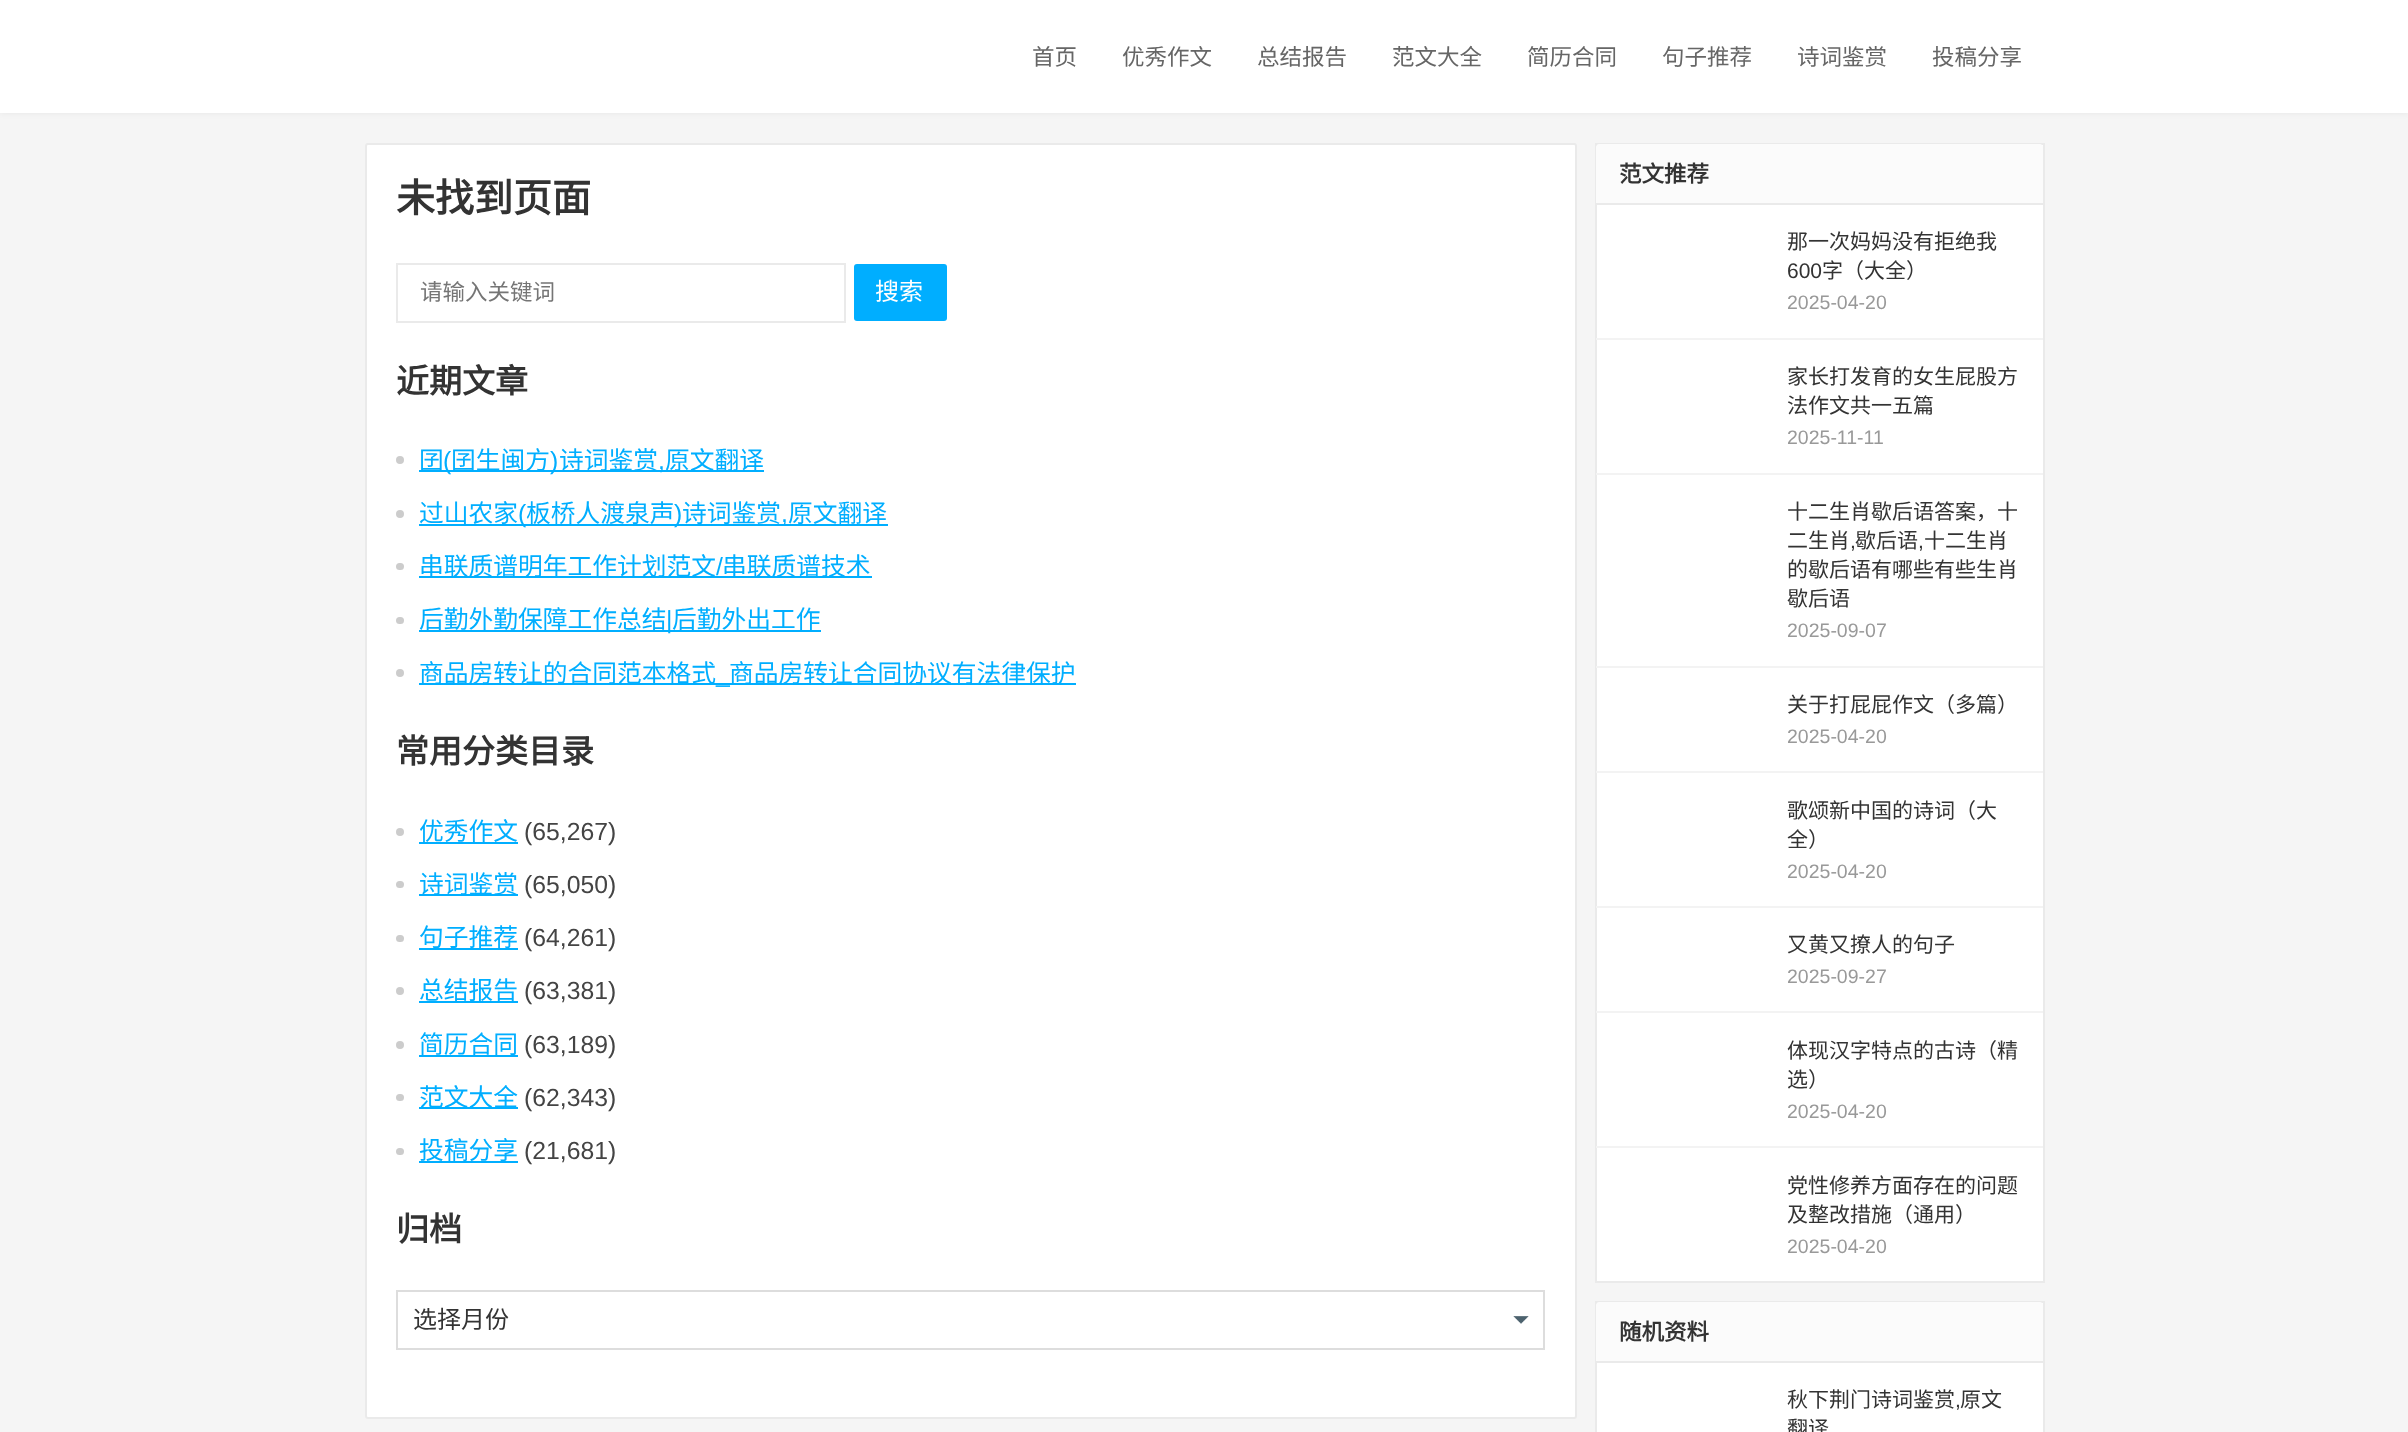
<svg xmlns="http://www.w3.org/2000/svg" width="2408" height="1432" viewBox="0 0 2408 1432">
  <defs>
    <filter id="blur1" x="-50%" y="-200%" width="200%" height="500%"><feGaussianBlur stdDeviation="3"/></filter>
  </defs>
  <rect width="100%" height="100%" fill="#f5f5f5"/>
  <rect x="0" y="0" width="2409" height="113" fill="#000000" fill-opacity="0.06" filter="url(#blur1)"/>
  <rect x="0" y="0" width="2408" height="113" fill="#ffffff"/>
  <text x="1032" y="65" font-family="Noto Sans CJK SC" font-size="22.5" fill="#666666">首页</text>
  <text x="1122" y="65" font-family="Noto Sans CJK SC" font-size="22.5" fill="#666666">优秀作文</text>
  <text x="1257" y="65" font-family="Noto Sans CJK SC" font-size="22.5" fill="#666666">总结报告</text>
  <text x="1392" y="65" font-family="Noto Sans CJK SC" font-size="22.5" fill="#666666">范文大全</text>
  <text x="1527" y="65" font-family="Noto Sans CJK SC" font-size="22.5" fill="#666666">简历合同</text>
  <text x="1662" y="65" font-family="Noto Sans CJK SC" font-size="22.5" fill="#666666">句子推荐</text>
  <text x="1797" y="65" font-family="Noto Sans CJK SC" font-size="22.5" fill="#666666">诗词鉴赏</text>
  <text x="1932" y="65" font-family="Noto Sans CJK SC" font-size="22.5" fill="#666666">投稿分享</text>
  <rect x="366" y="144" width="1210" height="1274" rx="2" fill="#ffffff" stroke="#eaeaea" stroke-width="2"/>
  <text x="396" y="212" font-family="Noto Sans CJK SC" font-size="39" font-weight="bold" fill="#333333">未找到页面</text>
  <rect x="397" y="264" width="448" height="58" fill="none" stroke="#eaeaea" stroke-width="2"/>
  <text x="420" y="300" font-family="Noto Sans CJK SC" font-size="22.5" fill="#757575">请输入关键词</text>
  <rect x="854" y="264" width="93" height="57" rx="3" fill="#00aeff"/>
  <text x="875" y="300" font-family="Noto Sans CJK SC" font-size="24" fill="#ffffff">搜索</text>
  <text x="396" y="393" font-family="Noto Sans CJK SC" font-size="33" font-weight="bold" fill="#333333">近期文章</text>
  <circle cx="400" cy="460" r="4" fill="#cccccc"/>
  <rect x="419" y="470" width="345" height="2" fill="#00aeff"/>
  <text x="419" y="469" font-family="Noto Sans CJK SC" font-size="24.75" fill="#00aeff">囝</text>
  <text x="443" y="469" font-family="Liberation Sans" font-size="24.75" fill="#00aeff">(</text>
  <text x="451" y="469" font-family="Noto Sans CJK SC" font-size="24.75" fill="#00aeff">囝生闽方</text>
  <text x="550" y="469" font-family="Liberation Sans" font-size="24.75" fill="#00aeff">)</text>
  <text x="559" y="469" font-family="Noto Sans CJK SC" font-size="24.75" fill="#00aeff">诗词鉴赏</text>
  <text x="665" y="469" font-family="Noto Sans CJK SC" font-size="24.75" fill="#00aeff">原文翻译</text>
  <text x="658" y="469" font-family="Liberation Sans" font-size="24.75" fill="#00aeff">,</text>
  <circle cx="400" cy="514" r="4" fill="#cccccc"/>
  <text x="419" y="522" font-family="Noto Sans CJK SC" font-size="24.75" fill="#00aeff">过山农家</text>
  <rect x="419" y="524" width="469" height="2" fill="#00aeff"/>
  <text x="518" y="522" font-family="Liberation Sans" font-size="24.75" fill="#00aeff">(</text>
  <text x="526" y="522" font-family="Noto Sans CJK SC" font-size="24.75" fill="#00aeff">板桥人渡泉声</text>
  <text x="674" y="522" font-family="Liberation Sans" font-size="24.75" fill="#00aeff">)</text>
  <text x="682" y="522" font-family="Noto Sans CJK SC" font-size="24.75" fill="#00aeff">诗词鉴赏</text>
  <text x="788" y="522" font-family="Noto Sans CJK SC" font-size="24.75" fill="#00aeff">原文翻译</text>
  <text x="781" y="522" font-family="Liberation Sans" font-size="24.75" fill="#00aeff">,</text>
  <rect x="396" y="563" width="8" height="7" rx="3.5" fill="#cccccc"/>
  <rect x="419" y="576" width="453" height="2" fill="#00aeff"/>
  <text x="419" y="575" font-family="Noto Sans CJK SC" font-size="24.75" fill="#00aeff">串联质谱明年工作计划范文</text>
  <text x="716" y="575" font-family="Liberation Sans" font-size="24.75" fill="#00aeff">/</text>
  <text x="722" y="575" font-family="Noto Sans CJK SC" font-size="24.75" fill="#00aeff">串联质谱技术</text>
  <rect x="396" y="617" width="8" height="7" rx="3.5" fill="#cccccc"/>
  <rect x="419" y="630" width="402" height="2" fill="#00aeff"/>
  <text x="419" y="628" font-family="Noto Sans CJK SC" font-size="24.75" fill="#00aeff">后勤外勤保障工作总结</text>
  <text x="666" y="628" font-family="Liberation Sans" font-size="24.75" fill="#00aeff">|</text>
  <text x="672" y="628" font-family="Noto Sans CJK SC" font-size="24.75" fill="#00aeff">后勤外出工作</text>
  <circle cx="400" cy="673" r="4" fill="#cccccc"/>
  <rect x="419" y="683" width="657" height="2" fill="#00aeff"/>
  <text x="419" y="682" font-family="Noto Sans CJK SC" font-size="24.75" fill="#00aeff">商品房转让的合同范本格式</text>
  <text x="729" y="682" font-family="Noto Sans CJK SC" font-size="24.75" fill="#00aeff">商品房转让合同协议有法律保护</text>
  <text x="716" y="682" font-family="Liberation Sans" font-size="24.75" fill="#00aeff">_</text>
  <text x="396" y="763" font-family="Noto Sans CJK SC" font-size="33" font-weight="bold" fill="#333333">常用分类目录</text>
  <circle cx="400" cy="832" r="4" fill="#cccccc"/>
  <text x="419" y="840" font-family="Noto Sans CJK SC" font-size="24.75" fill="#00aeff">优秀作文</text>
  <rect x="419" y="842" width="99" height="2" fill="#00aeff"/>
  <text x="524" y="840" font-family="Liberation Sans" font-size="24.75" fill="#444444">(65,267)</text>
  <rect x="396" y="881" width="8" height="7" rx="3.5" fill="#cccccc"/>
  <rect x="419" y="894" width="99" height="2" fill="#00aeff"/>
  <text x="419" y="893" font-family="Noto Sans CJK SC" font-size="24.75" fill="#00aeff">诗词鉴赏</text>
  <text x="524" y="893" font-family="Liberation Sans" font-size="24.75" fill="#444444">(65,050)</text>
  <rect x="396" y="935" width="8" height="7" rx="3.5" fill="#cccccc"/>
  <rect x="419" y="948" width="99" height="2" fill="#00aeff"/>
  <text x="419" y="946" font-family="Noto Sans CJK SC" font-size="24.75" fill="#00aeff">句子推荐</text>
  <text x="524" y="946" font-family="Liberation Sans" font-size="24.75" fill="#444444">(64,261)</text>
  <circle cx="400" cy="991" r="4" fill="#cccccc"/>
  <rect x="419" y="1001" width="99" height="2" fill="#00aeff"/>
  <text x="419" y="999" font-family="Noto Sans CJK SC" font-size="24.75" fill="#00aeff">总结报告</text>
  <text x="524" y="999" font-family="Liberation Sans" font-size="24.75" fill="#444444">(63,381)</text>
  <circle cx="400" cy="1045" r="4" fill="#cccccc"/>
  <text x="419" y="1053" font-family="Noto Sans CJK SC" font-size="24.75" fill="#00aeff">简历合同</text>
  <rect x="419" y="1055" width="99" height="2" fill="#00aeff"/>
  <text x="524" y="1053" font-family="Liberation Sans" font-size="24.75" fill="#444444">(63,189)</text>
  <rect x="396" y="1094" width="8" height="7" rx="3.5" fill="#cccccc"/>
  <rect x="419" y="1107" width="99" height="2" fill="#00aeff"/>
  <text x="419" y="1106" font-family="Noto Sans CJK SC" font-size="24.75" fill="#00aeff">范文大全</text>
  <text x="524" y="1106" font-family="Liberation Sans" font-size="24.75" fill="#444444">(62,343)</text>
  <rect x="396" y="1148" width="8" height="7" rx="3.5" fill="#cccccc"/>
  <rect x="419" y="1161" width="99" height="2" fill="#00aeff"/>
  <text x="419" y="1159" font-family="Noto Sans CJK SC" font-size="24.75" fill="#00aeff">投稿分享</text>
  <text x="524" y="1159" font-family="Liberation Sans" font-size="24.75" fill="#444444">(21,681)</text>
  <text x="396" y="1241" font-family="Noto Sans CJK SC" font-size="33" font-weight="bold" fill="#333333">归档</text>
  <image x="1513" y="1316" width="16" height="8" href="img1.png"/>
  <rect x="397" y="1291" width="1147" height="58" fill="none" stroke="#dddddd" stroke-width="2"/>
  <text x="413" y="1328" font-family="Noto Sans CJK SC" font-size="24" fill="#333333">选择月份</text>
  <rect x="1596" y="144" width="448" height="1138" fill="#ffffff" stroke="#eaeaea" stroke-width="2"/>
  <path d="M1599 144H2040C2041.5 144 2043 145.5 2043 147V204H1596V147C1596 145.5 1597.5 144 1599 144Z" fill="#fbfbfb"/>
  <rect x="1596" y="203" width="447" height="2" fill="#eaeaea"/>
  <text x="1619" y="182" font-family="Noto Sans CJK SC" font-size="22.5" font-weight="bold" fill="#333333">范文推荐</text>
  <rect x="1596" y="338" width="447" height="2" fill="#f3f3f3"/>
  <text x="1787" y="249" font-family="Noto Sans CJK SC" font-size="21" fill="#333333">那一次妈妈没有拒绝我</text>
  <text x="1787" y="278" font-family="Liberation Sans" font-size="21" fill="#333333">600</text>
  <text x="1822" y="278" font-family="Noto Sans CJK SC" font-size="21" fill="#333333">字（大全）</text>
  <text x="1787" y="309" font-family="Liberation Sans" font-size="19.5" fill="#999999">2025-04-20</text>
  <rect x="1596" y="473" width="447" height="2" fill="#f3f3f3"/>
  <text x="1787" y="384" font-family="Noto Sans CJK SC" font-size="21" fill="#333333">家长打发育的女生屁股方</text>
  <text x="1787" y="413" font-family="Noto Sans CJK SC" font-size="21" fill="#333333">法作文共一五篇</text>
  <text x="1787" y="444" font-family="Liberation Sans" font-size="19.5" fill="#999999">2025-11-11</text>
  <rect x="1596" y="666" width="447" height="2" fill="#f3f3f3"/>
  <text x="1787" y="519" font-family="Noto Sans CJK SC" font-size="21" fill="#333333">十二生肖歇后语答案，十</text>
  <text x="1787" y="548" font-family="Noto Sans CJK SC" font-size="21" fill="#333333">二生肖</text>
  <text x="1850" y="548" font-family="Liberation Sans" font-size="21" fill="#333333">,</text>
  <text x="1855" y="548" font-family="Noto Sans CJK SC" font-size="21" fill="#333333">歇后语</text>
  <text x="1918" y="548" font-family="Liberation Sans" font-size="21" fill="#333333">,</text>
  <text x="1924" y="548" font-family="Noto Sans CJK SC" font-size="21" fill="#333333">十二生肖</text>
  <text x="1787" y="577" font-family="Noto Sans CJK SC" font-size="21" fill="#333333">的歇后语有哪些有些生肖</text>
  <text x="1787" y="606" font-family="Noto Sans CJK SC" font-size="21" fill="#333333">歇后语</text>
  <text x="1787" y="637" font-family="Liberation Sans" font-size="19.5" fill="#999999">2025-09-07</text>
  <rect x="1596" y="771" width="447" height="2" fill="#f3f3f3"/>
  <text x="1787" y="712" font-family="Noto Sans CJK SC" font-size="21" fill="#333333">关于打屁屁作文（多篇）</text>
  <text x="1787" y="743" font-family="Liberation Sans" font-size="19.5" fill="#999999">2025-04-20</text>
  <rect x="1596" y="906" width="447" height="2" fill="#f3f3f3"/>
  <text x="1787" y="818" font-family="Noto Sans CJK SC" font-size="21" fill="#333333">歌颂新中国的诗词（大</text>
  <text x="1787" y="847" font-family="Noto Sans CJK SC" font-size="21" fill="#333333">全）</text>
  <text x="1787" y="878" font-family="Liberation Sans" font-size="19.5" fill="#999999">2025-04-20</text>
  <rect x="1596" y="1011" width="447" height="2" fill="#f3f3f3"/>
  <text x="1787" y="952" font-family="Noto Sans CJK SC" font-size="21" fill="#333333">又黄又撩人的句子</text>
  <text x="1787" y="983" font-family="Liberation Sans" font-size="19.5" fill="#999999">2025-09-27</text>
  <rect x="1596" y="1146" width="447" height="2" fill="#f3f3f3"/>
  <text x="1787" y="1058" font-family="Noto Sans CJK SC" font-size="21" fill="#333333">体现汉字特点的古诗（精</text>
  <text x="1787" y="1087" font-family="Noto Sans CJK SC" font-size="21" fill="#333333">选）</text>
  <text x="1787" y="1118" font-family="Liberation Sans" font-size="19.5" fill="#999999">2025-04-20</text>
  <text x="1787" y="1193" font-family="Noto Sans CJK SC" font-size="21" fill="#333333">党性修养方面存在的问题</text>
  <text x="1787" y="1222" font-family="Noto Sans CJK SC" font-size="21" fill="#333333">及整改措施（通用）</text>
  <text x="1787" y="1253" font-family="Liberation Sans" font-size="19.5" fill="#999999">2025-04-20</text>
  <rect x="1596" y="1302" width="448" height="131" fill="#ffffff" stroke="#eaeaea" stroke-width="2"/>
  <path d="M1599 1302H2040C2041.5 1302 2043 1303.5 2043 1305V1362H1596V1305C1596 1303.5 1597.5 1302 1599 1302Z" fill="#fbfbfb"/>
  <rect x="1596" y="1361" width="447" height="2" fill="#eaeaea"/>
  <text x="1619" y="1340" font-family="Noto Sans CJK SC" font-size="22.5" font-weight="bold" fill="#333333">随机资料</text>
  <text x="1787" y="1407" font-family="Noto Sans CJK SC" font-size="21" fill="#333333">秋下荆门诗词鉴赏</text>
  <text x="1955" y="1407" font-family="Liberation Sans" font-size="21" fill="#333333">,</text>
  <text x="1960" y="1407" font-family="Noto Sans CJK SC" font-size="21" fill="#333333">原文</text>
  <text x="1787" y="1436" font-family="Noto Sans CJK SC" font-size="21" fill="#333333">翻译</text>
</svg>
